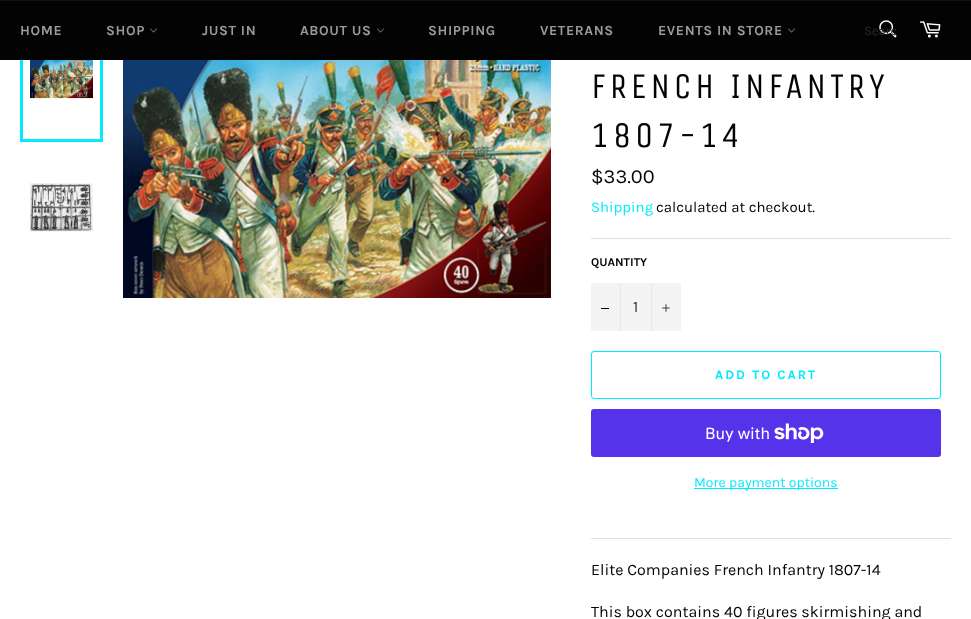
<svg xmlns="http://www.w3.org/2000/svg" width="971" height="619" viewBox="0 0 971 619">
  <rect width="100%" height="100%" fill="#ffffff"/>
  <image x="30" y="60" width="63" height="39" href="img4.png"/>
  <rect x="21.5" y="13.5" width="80" height="127" fill="none" stroke="#00ebff" stroke-width="3"/>
  <rect x="0" y="1" width="971" height="59" fill="#030303"/>
  <rect x="0" y="0" width="971" height="1" fill="#101010"/>
  <text x="20" y="35" font-family="Karla" font-size="14" font-weight="bold" letter-spacing="0.6" fill="#9a9a9a">HOME</text>
  <text x="106" y="35" font-family="Karla" font-size="14" font-weight="bold" letter-spacing="0.6" fill="#9a9a9a">SHOP</text>
  <image x="150" y="28" width="7" height="5" href="img1.png"/>
  <text x="202" y="35" font-family="Karla" font-size="14" font-weight="bold" letter-spacing="0.6" fill="#9a9a9a">JUST IN</text>
  <text x="300" y="35" font-family="Karla" font-size="14" font-weight="bold" letter-spacing="0.6" fill="#9a9a9a">ABOUT US</text>
  <image x="377" y="28" width="7" height="5" href="img1.png"/>
  <text x="428" y="35" font-family="Karla" font-size="14" font-weight="bold" letter-spacing="0.6" fill="#9a9a9a">SHIPPING</text>
  <text x="540" y="35" font-family="Karla" font-size="14" font-weight="bold" letter-spacing="0.6" fill="#9a9a9a">VETERANS</text>
  <text x="658" y="35" font-family="Karla" font-size="14" font-weight="bold" letter-spacing="0.6" fill="#9a9a9a">EVENTS IN STORE</text>
  <image x="788" y="28" width="7" height="5" href="img1.png"/>
  <image x="879" y="20" width="18" height="18" href="img2.png"/>
  <text x="864" y="35" font-family="Karla" font-size="13" fill="#2b2b2b">Searc</text>
  <image x="919" y="21" width="22" height="17" href="img3.png"/>
  <image x="30" y="183" width="63" height="49" href="img5.png"/>
  <image x="123" y="60" width="428" height="238" href="img6.png"/>
  <text x="591" y="98" font-family="Unica One" font-size="36" letter-spacing="3.6" fill="#030303">FRENCH INFANTRY</text>
  <text x="591" y="147" font-family="Unica One" font-size="36" letter-spacing="3.6" fill="#030303">1807-14</text>
  <text x="591" y="183" font-family="Karla" font-size="20" fill="#030303">$33.00</text>
  <text x="591" y="212" font-family="Karla" font-size="15" fill="#00ebff">Shipping</text>
  <text x="656" y="212" font-family="Karla" font-size="15" fill="#030303">calculated at checkout.</text>
  <rect x="591" y="238" width="360" height="1" fill="#e9dbda"/>
  <text x="591" y="266" font-family="Karla" font-size="12" font-weight="bold" fill="#030303">QUANTITY</text>
  <rect x="591" y="283" width="90" height="48" fill="#f4f4f4"/>
  <rect x="620" y="283" width="1" height="48" fill="#e7e7e7"/>
  <rect x="601" y="308" width="8" height="1" fill="#030303"/>
  <text x="633" y="312" font-family="Karla" font-size="16" fill="#333333">1</text>
  <rect x="651" y="283" width="1" height="48" fill="#e7e7e7"/>
  <image x="662" y="304" width="8" height="8" href="img7.png"/>
  <rect x="591.5" y="351.5" width="349" height="47" rx="2.5" fill="none" stroke="#00ebff"/>
  <text x="715" y="379" font-family="Karla" font-size="13" font-weight="bold" letter-spacing="2" fill="#00ebff">ADD TO CART</text>
  <rect x="591" y="409" width="350" height="48" rx="3" fill="#5433eb"/>
  <text x="705" y="439" font-family="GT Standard" font-size="16" fill="#ffffff">Buy with</text>
  <image x="774" y="423" width="50" height="20" href="img8.png"/>
  <rect x="694" y="488" width="144" height="1" fill="#00ebff"/>
  <text x="694" y="487" font-family="Karla" font-size="14" fill="#00ebff">More payment options</text>
  <rect x="591" y="538" width="360" height="1" fill="#e9dbda"/>
  <text x="591" y="575" font-family="Karla" font-size="16" fill="#030303">Elite Companies French Infantry 1807-14</text>
  <text x="591" y="617" font-family="Karla" font-size="16" fill="#030303">This box contains 40 figures skirmishing and</text>
</svg>
